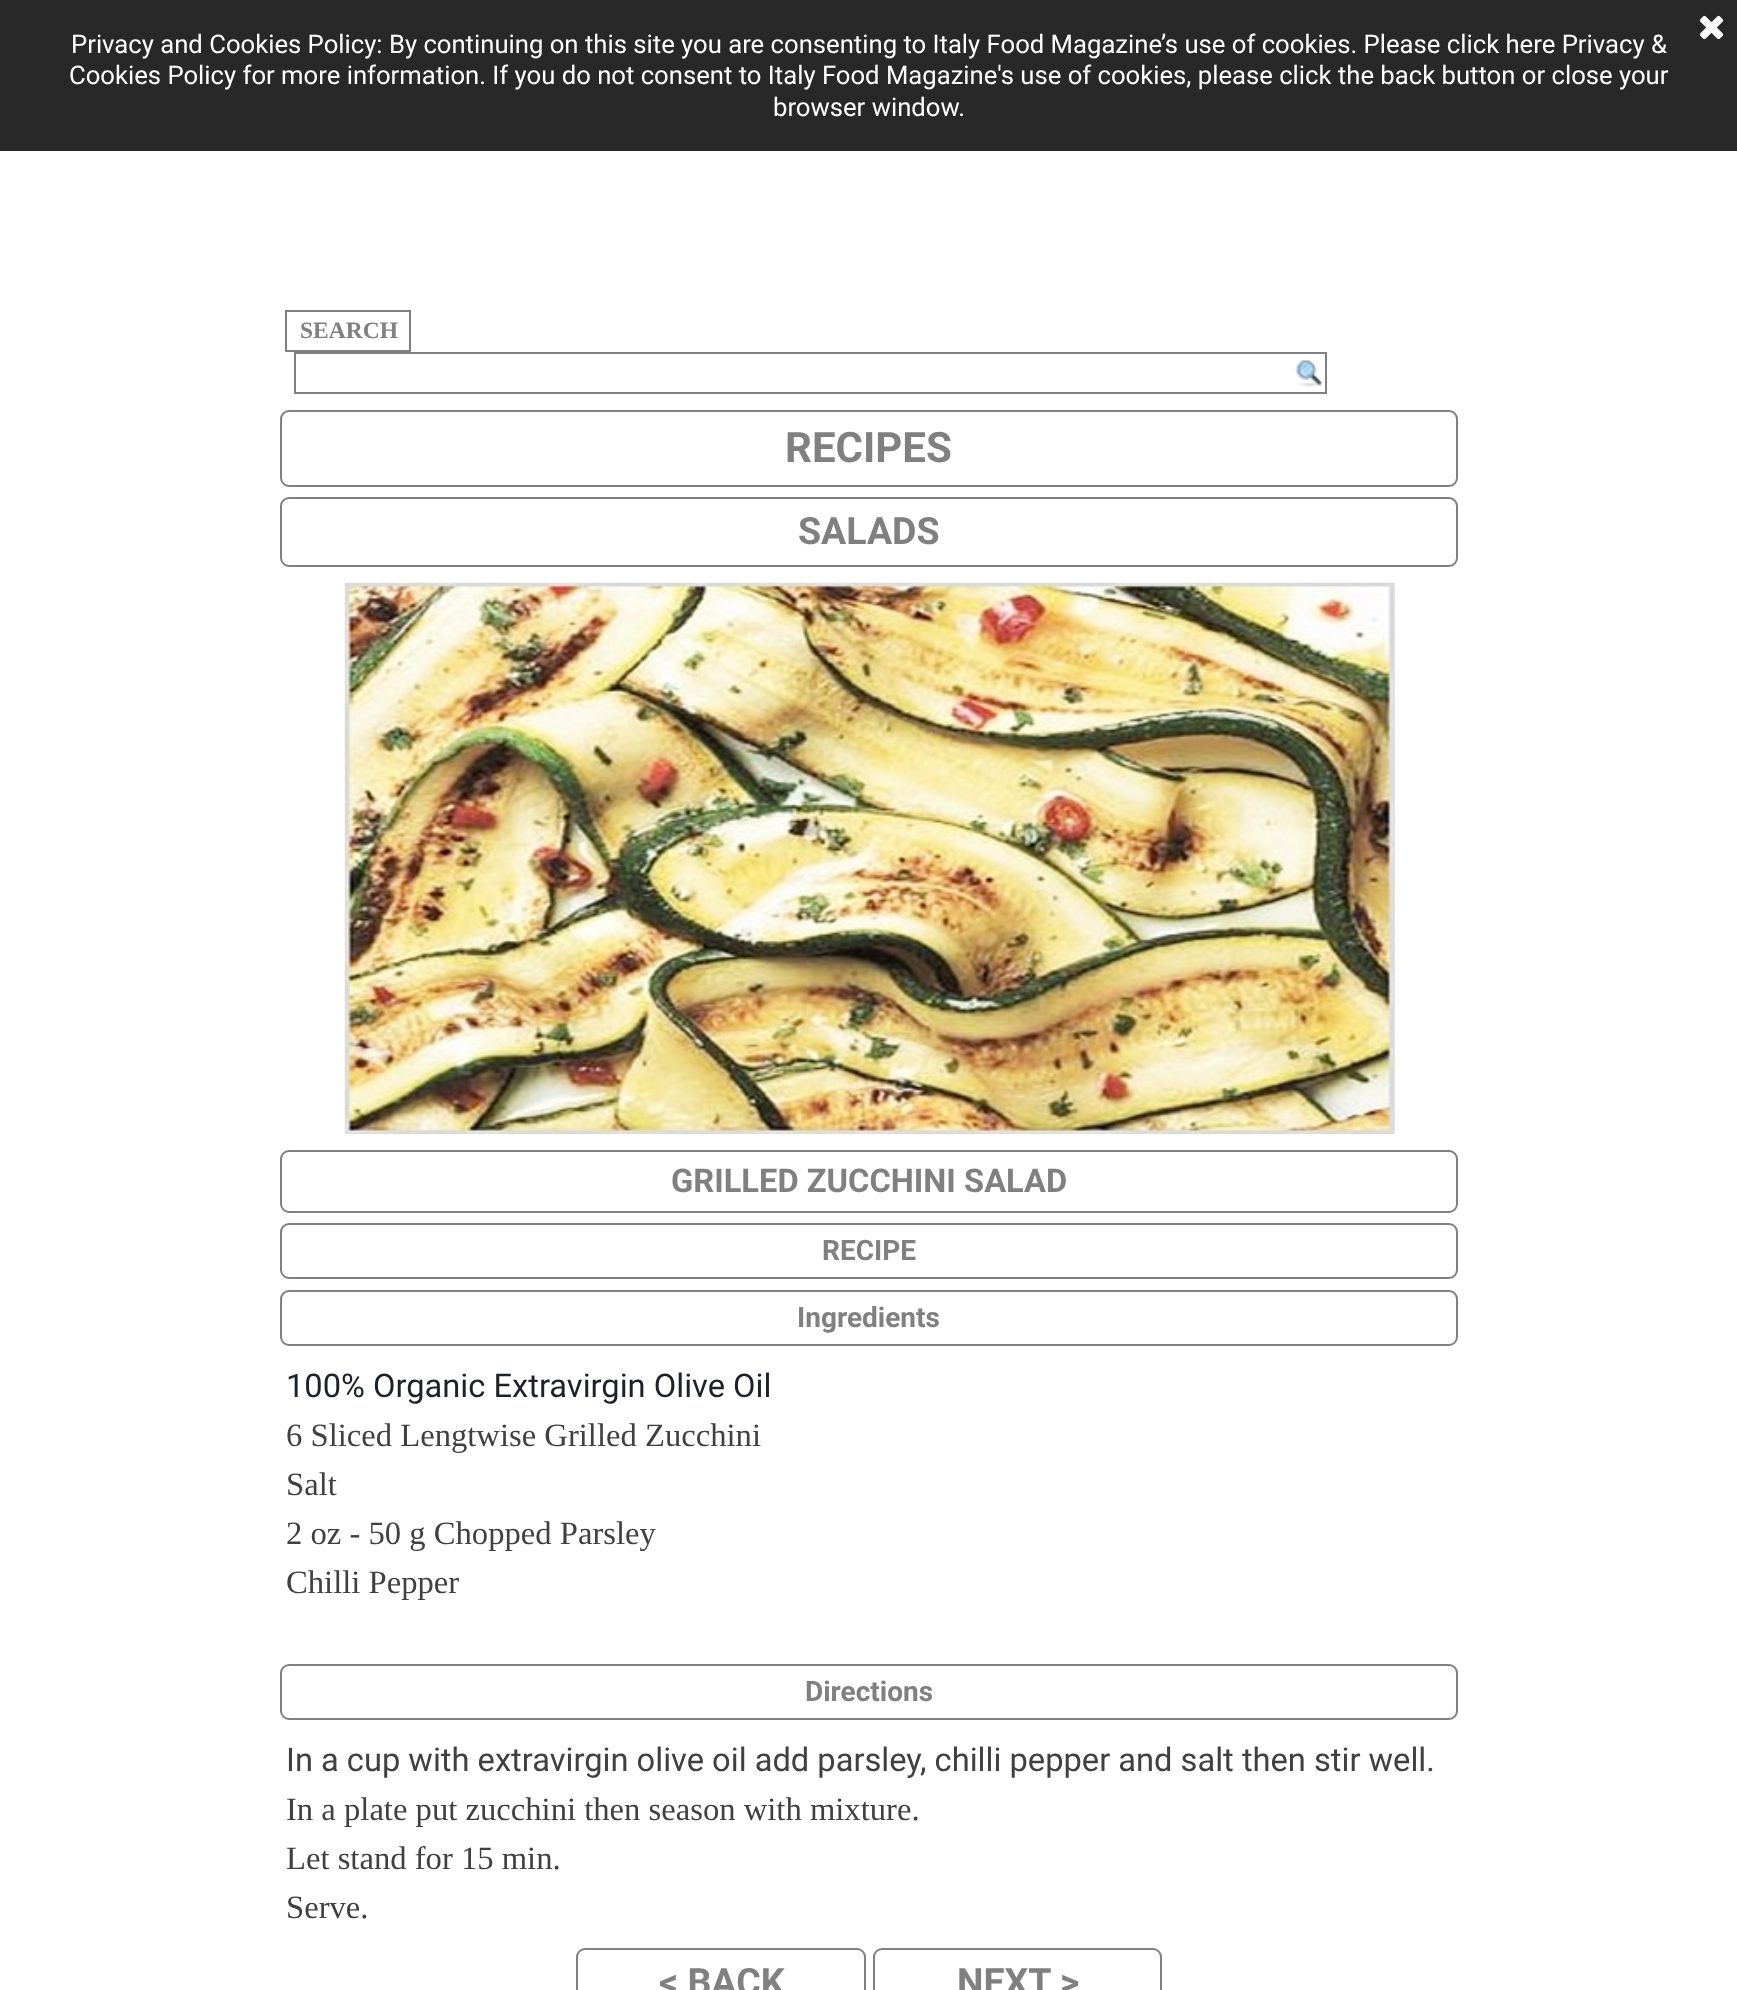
<svg xmlns="http://www.w3.org/2000/svg" width="1737" height="1990" viewBox="0 0 1737 1990">
  <rect width="100%" height="100%" fill="#ffffff"/>
  <rect x="0" y="0" width="1737" height="151" fill="#282828"/>
  <image x="1699" y="15" width="25" height="25" href="img1.png"/>
  <text x="71" y="53" font-family="Roboto" font-size="25.67" fill="#ffffff">Privacy and Cookies Policy: By continuing on this site you are consenting to Italy Food Magazine’s use of cookies. Please click here Privacy &amp;</text>
  <text x="69" y="84" font-family="Roboto" font-size="25.67" fill="#ffffff">Cookies Policy for more information. If you do not consent to Italy Food Magazine's use of cookies, please click the back button or close your</text>
  <text x="773" y="116" font-family="Roboto" font-size="25.67" fill="#ffffff">browser window.</text>
  <rect x="286" y="311" width="124" height="40" fill="none" stroke="#808080" stroke-width="2"/>
  <text x="300" y="338" font-family="Liberation Serif" font-size="23.5" font-weight="bold" fill="#808080">SEARCH</text>
  <image x="1295" y="360" width="27" height="27" href="img2.png"/>
  <rect x="295" y="353" width="1031" height="40" fill="none" stroke="#808080" stroke-width="2"/>
  <rect x="281" y="411" width="1176" height="75" rx="8" fill="none" stroke="#808080" stroke-width="2"/>
  <text x="785" y="462" font-family="Roboto" font-size="42" font-weight="bold" fill="#808080">RECIPES</text>
  <rect x="281" y="498" width="1176" height="68" rx="8" fill="none" stroke="#808080" stroke-width="2"/>
  <text x="798" y="544" font-family="Roboto" font-size="37.5" font-weight="bold" fill="#808080">SALADS</text>
  <image x="344" y="582" width="1051" height="552" href="img3.png"/>
  <rect x="281" y="1151" width="1176" height="61" rx="8" fill="none" stroke="#808080" stroke-width="2"/>
  <text x="671" y="1192" font-family="Roboto" font-size="32.65" font-weight="bold" fill="#808080">GRILLED ZUCCHINI SALAD</text>
  <rect x="281" y="1224" width="1176" height="54" rx="8" fill="none" stroke="#808080" stroke-width="2"/>
  <text x="822" y="1260" font-family="Roboto" font-size="28" font-weight="bold" fill="#808080">RECIPE</text>
  <rect x="281" y="1291" width="1176" height="54" rx="8" fill="none" stroke="#808080" stroke-width="2"/>
  <text x="797" y="1327" font-family="Roboto" font-size="28" font-weight="bold" fill="#808080">Ingredients</text>
  <text x="286" y="1397" font-family="Roboto" font-size="32.65" fill="#1d2129">100% Organic Extravirgin Olive Oil</text>
  <text x="286" y="1446" font-family="Liberation Serif" font-size="32.65" fill="#404040">6 Sliced Lengtwise Grilled Zucchini</text>
  <text x="286" y="1495" font-family="Liberation Serif" font-size="32.65" fill="#404040">Salt</text>
  <text x="286" y="1544" font-family="Liberation Serif" font-size="32.65" fill="#404040">2 oz - 50 g Chopped Parsley</text>
  <text x="286" y="1593" font-family="Liberation Serif" font-size="32.65" fill="#404040">Chilli Pepper</text>
  <rect x="281" y="1665" width="1176" height="54" rx="8" fill="none" stroke="#808080" stroke-width="2"/>
  <text x="805" y="1701" font-family="Roboto" font-size="28" font-weight="bold" fill="#808080">Directions</text>
  <text x="286" y="1771" font-family="Roboto" font-size="32.65" fill="#404040">In a cup with extravirgin olive oil add parsley, chilli pepper and salt then stir well.</text>
  <text x="286" y="1820" font-family="Liberation Serif" font-size="32.65" fill="#404040">In a plate put zucchini then season with mixture.</text>
  <text x="286" y="1869" font-family="Liberation Serif" font-size="32.65" fill="#404040">Let stand for 15 min.</text>
  <text x="286" y="1918" font-family="Liberation Serif" font-size="32.65" fill="#404040">Serve.</text>
  <rect x="577" y="1949" width="288" height="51" rx="8" fill="none" stroke="#808080" stroke-width="2"/>
  <text x="659" y="1995" font-family="Roboto" font-size="37.5" font-weight="bold" fill="#808080">&lt; BACK</text>
  <rect x="874" y="1949" width="287" height="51" rx="8" fill="none" stroke="#808080" stroke-width="2"/>
  <text x="957" y="1995" font-family="Roboto" font-size="37.5" font-weight="bold" fill="#808080">NEXT &gt;</text>
</svg>
